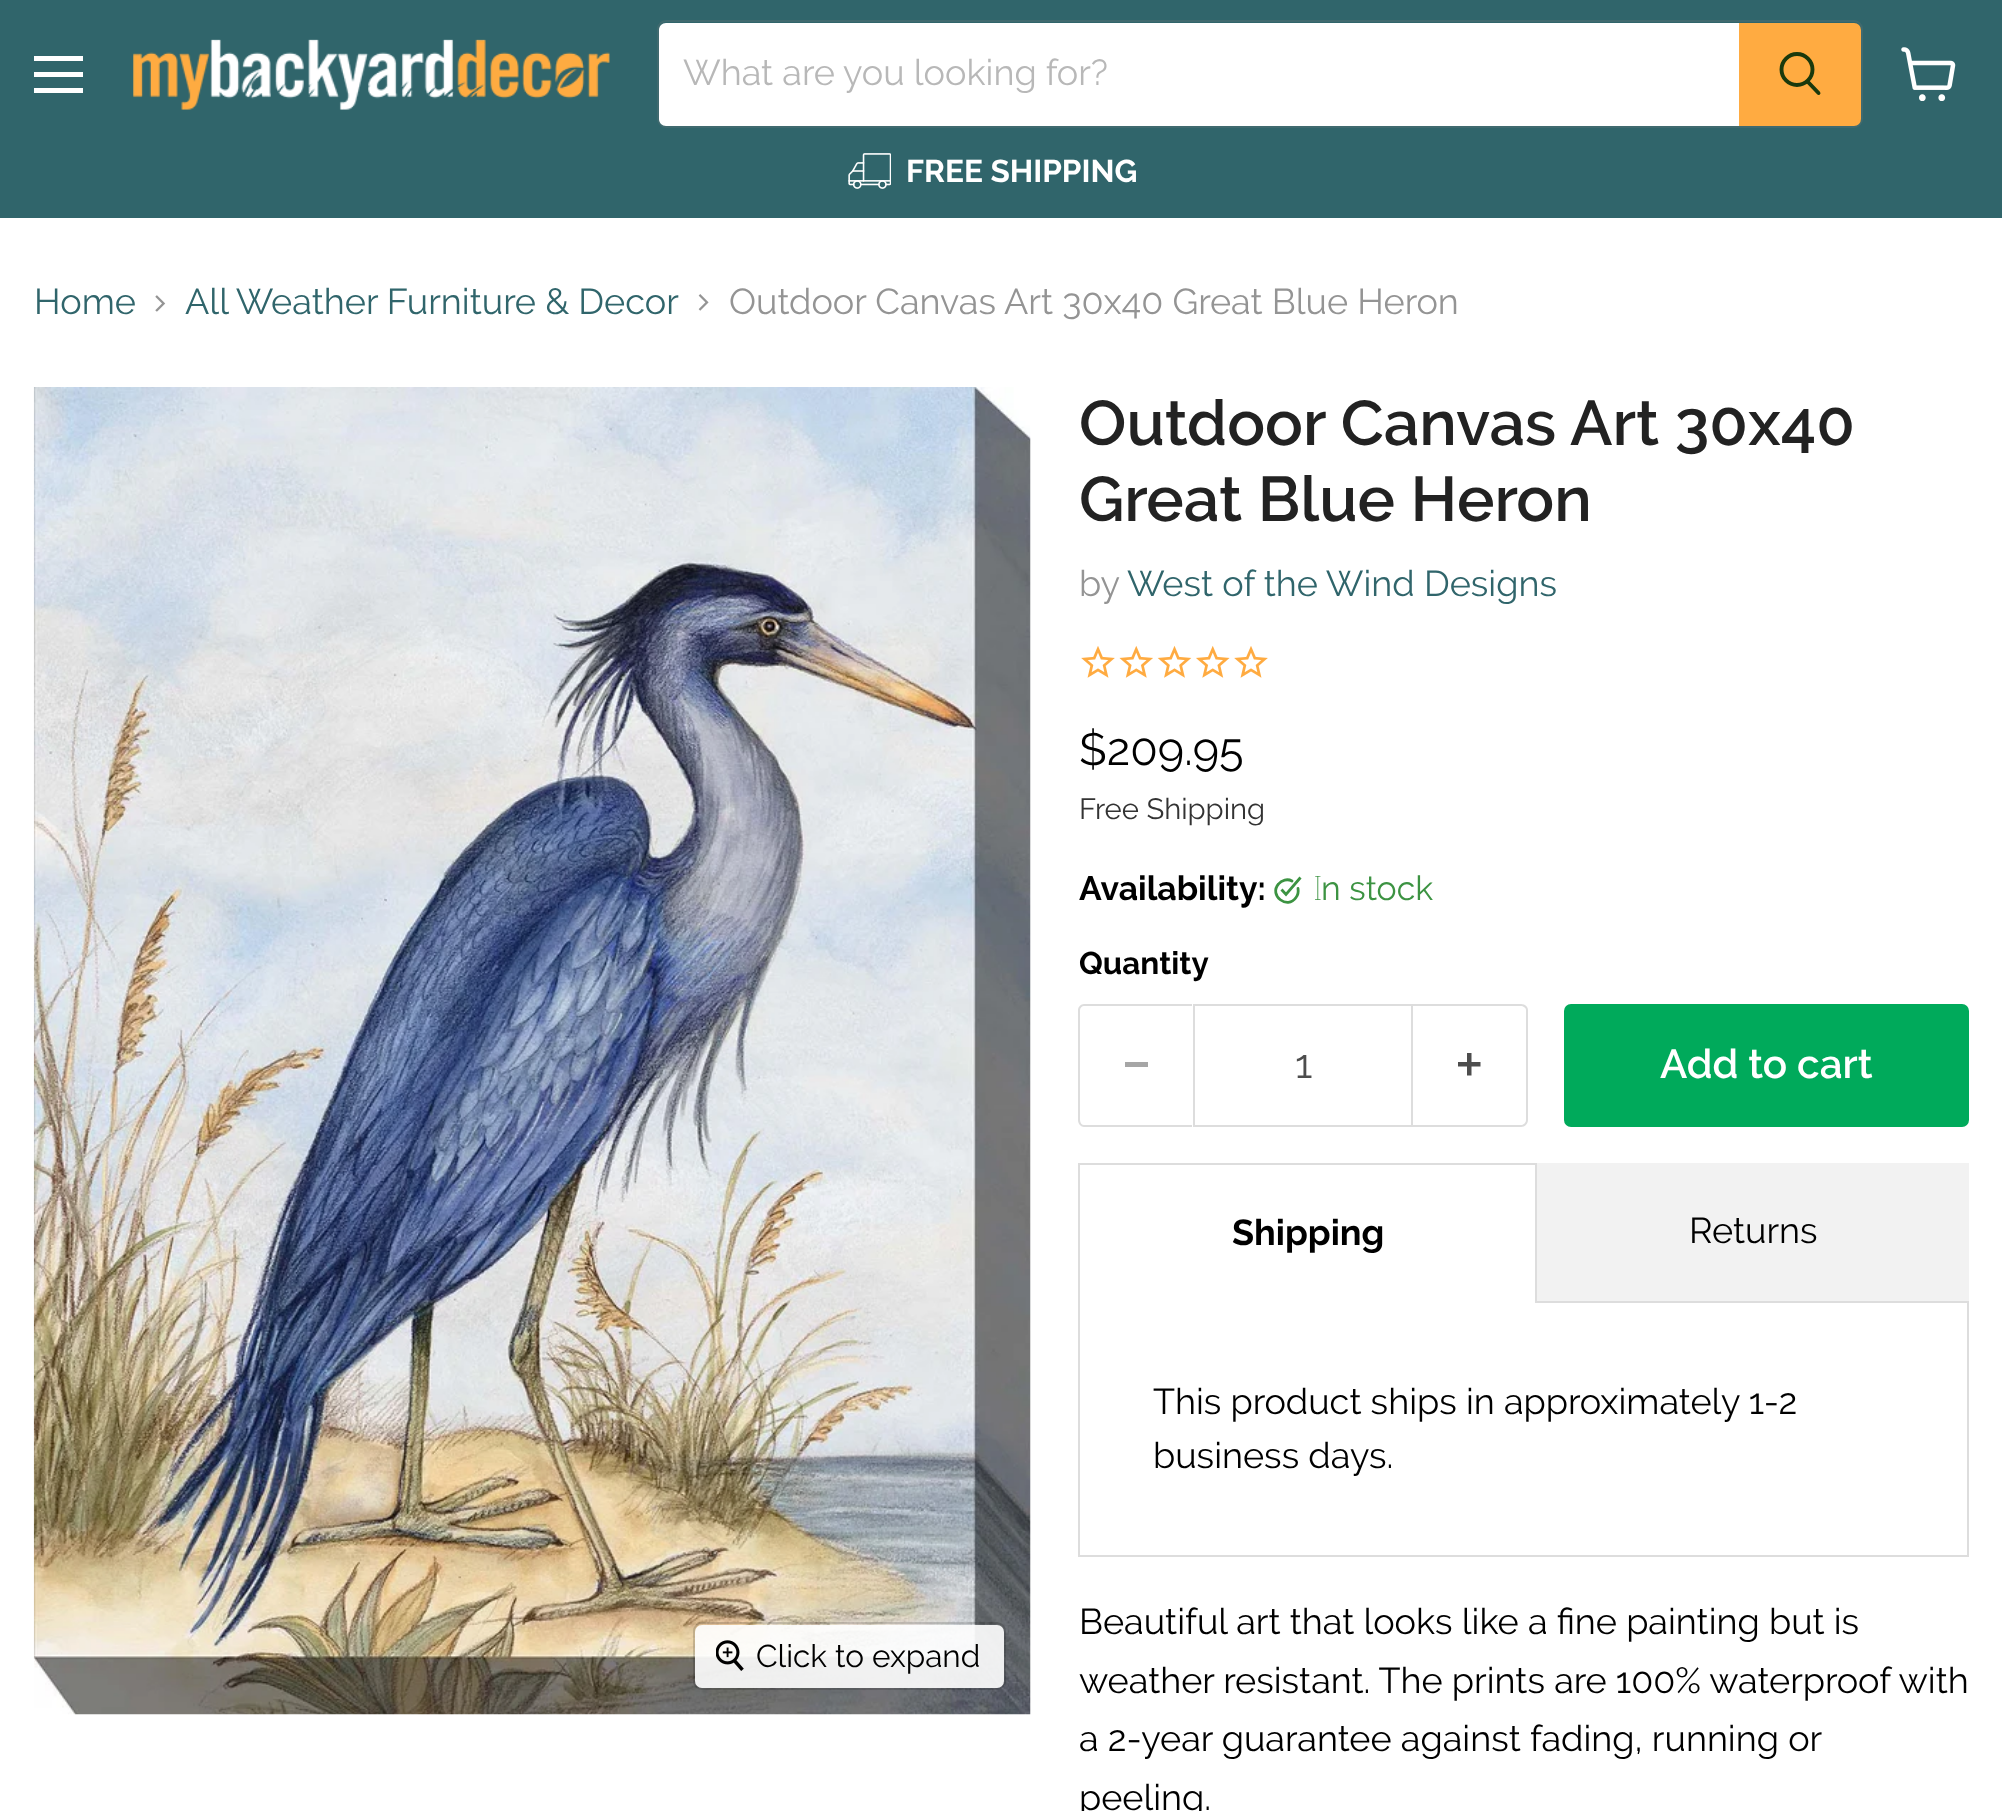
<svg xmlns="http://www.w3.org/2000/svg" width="2002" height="1811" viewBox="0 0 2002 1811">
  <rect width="100%" height="100%" fill="#ffffff"/>
  <rect x="0" y="0" width="2002" height="218" fill="#30656b"/>
  <rect x="34" y="56" width="49" height="5" fill="#ffffff"/>
  <rect x="34" y="72" width="49" height="5" fill="#ffffff"/>
  <rect x="34" y="88" width="49" height="5" fill="#ffffff"/>
  <image x="133" y="39" width="477" height="71" href="img1.png"/>
  <rect x="658" y="21" width="1204" height="106" rx="8" fill="none" stroke="#406a6f" stroke-width="2"/>
  <path d="M666 23H1739V126H666C662 126 659 123 659 119V30C659 26 662 23 666 23Z" fill="#ffffff"/>
  <text x="683" y="85" font-family="Raleway" font-size="36" fill="#b8b8b8">What are you looking for?</text>
  <path d="M1740 24H1854C1857.5 24 1860 26.5 1860 30V119C1860 122.5 1857.5 125 1854 125H1740Z" fill="#ffab41" stroke="#ffab41" stroke-width="2"/>
  <path d="M1818.5 93L1808 82" fill="none" stroke="#1a390c" stroke-width="3.9" stroke-linecap="round"/>
  <circle cx="1797" cy="69.5" r="15.5" fill="none" stroke="#1a390c" stroke-width="3.9"/>
  <image x="848" y="153" width="43" height="36" href="img2.png"/>
  <text x="906" y="182" font-family="Raleway" font-size="31.5" font-weight="bold" fill="#ffffff">FREE SHIPPING</text>
  <image x="1901" y="47" width="55" height="54" href="img3.png"/>
  <text x="34" y="314" font-family="Raleway" font-size="36" fill="#30656b">Home</text>
  <image x="155" y="295" width="11" height="17" href="img4.png"/>
  <text x="185" y="314" font-family="Raleway" font-size="36" fill="#30656b">All Weather Furniture &amp; Decor</text>
  <image x="698" y="294" width="11" height="17" href="img5.png"/>
  <text x="729" y="314" font-family="Raleway" font-size="36" fill="#949494">Outdoor Canvas Art 30x40 Great Blue Heron</text>
  <image x="33" y="387" width="998" height="1328" href="img6.png"/>
  <rect x="694" y="1623" width="311" height="66" rx="8" fill="none" stroke="#000000" stroke-opacity="0.15" stroke-width="2"/>
  <rect x="695" y="1625" width="309" height="63" rx="7" fill="#ffffff" fill-opacity="0.9"/>
  <image x="716" y="1640" width="28" height="31" href="img7.png"/>
  <text x="756" y="1667" font-family="Raleway" font-size="31.5" fill="#000000">Click to expand</text>
  <text x="1079" y="445" font-family="Raleway" font-size="63" font-weight="600" fill="#222222">Outdoor Canvas Art 30x40</text>
  <text x="1079" y="521" font-family="Raleway" font-size="63" font-weight="600" fill="#222222">Great Blue Heron</text>
  <text x="1079" y="596" font-family="Raleway" font-size="36" fill="#949494">by</text>
  <text x="1127" y="596" font-family="Raleway" font-size="36" fill="#30656b">West of the Wind Designs</text>
  <image x="1081" y="646" width="34" height="32" href="img8.png"/>
  <image x="1119" y="645" width="34" height="33" href="img9.png"/>
  <image x="1157" y="645" width="35" height="33" href="img10.png"/>
  <image x="1196" y="645" width="34" height="33" href="img11.png"/>
  <image x="1234" y="646" width="34" height="32" href="img8.png"/>
  <text x="1079" y="765" font-family="Raleway" font-size="45" fill="#000000">$209.95</text>
  <text x="1079" y="819" font-family="Raleway" font-size="29.25" fill="#333333">Free Shipping</text>
  <text x="1079" y="900" font-family="Raleway" font-size="33.75" font-weight="bold" fill="#000000">Availability:</text>
  <path d="M1281.5 889.5L1286 894.5L1300.5 877.5" fill="none" stroke="#3c9342" stroke-width="2.8"/>
  <path d="M1298 888.5C1298.5 891.5 1298 895 1296 897.5C1287.5 910 1268.5 895.5 1278.5 884C1281.5 880 1287.5 878.5 1292 881" fill="none" stroke="#3c9342" stroke-width="2.8" stroke-linecap="round" stroke-linejoin="round"/>
  <text x="1313" y="900" font-family="Noto Sans" font-size="33.75" font-weight="100" fill="#3c9342">I</text>
  <text x="1321" y="900" font-family="Raleway" font-size="33.75" fill="#3c9342">n stock</text>
  <text x="1079" y="974" font-family="Raleway" font-size="31.5" font-weight="bold" fill="#000000">Quantity</text>
  <path d="M1084 1004H1192V1127H1084C1081 1127 1078 1124 1078 1120V1010C1078 1007 1081 1004 1084 1004ZM1084 1006H1192V1125H1084C1082 1125 1080 1123 1080 1120V1010C1080 1008 1082 1006 1084 1006Z" fill="#dddddd" fill-rule="evenodd"/>
  <rect x="1125" y="1062" width="23" height="5" fill="#a6a6a6"/>
  <rect x="1194" y="1005" width="218" height="121" fill="none" stroke="#dddddd" stroke-width="2"/>
  <text x="1295" y="1078" font-family="Raleway" font-size="40.5" fill="#4d4d4d">1</text>
  <path d="M1413 1004H1521C1525 1004 1528 1007 1528 1010V1120C1528 1124 1525 1127 1521 1127H1413ZM1413 1006H1521C1523 1006 1526 1008 1526 1010V1120C1526 1123 1523 1125 1521 1125H1413Z" fill="#dddddd" fill-rule="evenodd"/>
  <image x="1458" y="1053" width="23" height="23" href="img12.png"/>
  <rect x="1565" y="1005" width="403" height="121" rx="6" fill="#00aa5b" stroke="#00aa5b" stroke-width="2"/>
  <text x="1660" y="1078" font-family="Raleway" font-size="40.5" font-weight="600" fill="#ffffff">Add to cart</text>
  <rect x="1078" y="1163" width="459" height="2" fill="#dddddd"/>
  <rect x="1535" y="1163" width="2" height="140" fill="#dddddd"/>
  <rect x="1078" y="1163" width="2" height="140" fill="#dddddd"/>
  <text x="1232" y="1245" font-family="Raleway" font-size="36" font-weight="bold" fill="#000000">Shipping</text>
  <rect x="1537" y="1163" width="432" height="138" fill="#f2f2f2"/>
  <rect x="1537" y="1301" width="432" height="2" fill="#dddddd"/>
  <text x="1689" y="1243" font-family="Raleway" font-size="36" fill="#000000">Returns</text>
  <rect x="1967" y="1303" width="2" height="254" fill="#dddddd"/>
  <rect x="1078" y="1555" width="891" height="2" fill="#dddddd"/>
  <rect x="1078" y="1303" width="2" height="254" fill="#dddddd"/>
  <text x="1153" y="1414" font-family="Raleway" font-size="36" fill="#000000">This product ships in approximately 1-2</text>
  <text x="1153" y="1468" font-family="Raleway" font-size="36" fill="#000000">business days.</text>
  <text x="1079" y="1634" font-family="Raleway" font-size="36" fill="#000000">Beautiful art that looks like a fine painting but is</text>
  <text x="1079" y="1693" font-family="Raleway" font-size="36" fill="#000000">weather resistant. The prints are 100% waterproof with</text>
  <text x="1079" y="1751" font-family="Raleway" font-size="36" fill="#000000">a 2-year guarantee against fading, running or</text>
  <text x="1079" y="1810" font-family="Raleway" font-size="36" fill="#000000">peeling.</text>
</svg>
